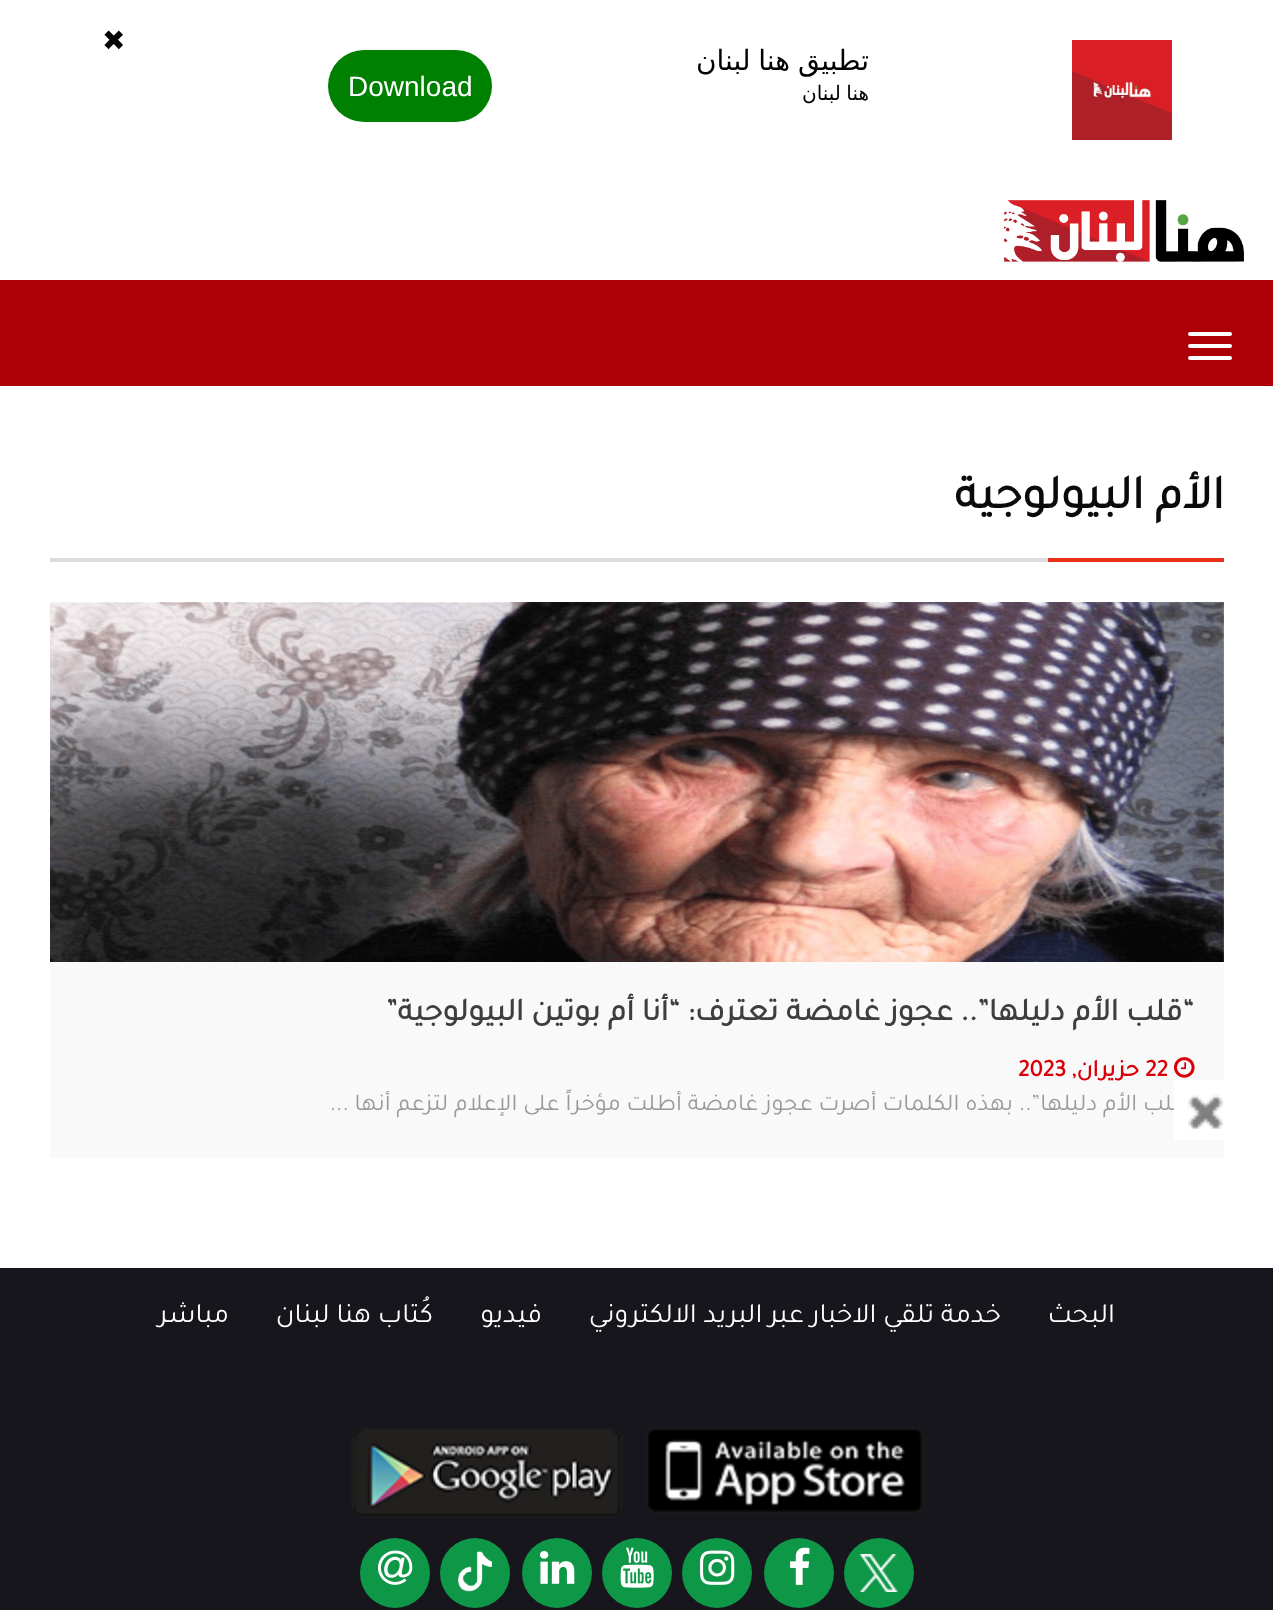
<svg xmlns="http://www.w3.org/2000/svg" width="1273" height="1610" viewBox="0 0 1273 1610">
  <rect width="100%" height="100%" fill="#ffffff"/>
  <image x="1072" y="40" width="100" height="100" href="img1.png"/>
  <text x="869" y="70" word-spacing="-1" font-family="DejaVu Sans" font-size="28" direction="rtl" fill="#000000">تطبيق هنا لبنان</text>
  <text x="869" y="100" word-spacing="-1" font-family="DejaVu Sans" font-size="20" direction="rtl" fill="#000000">هنا لبنان</text>
  <rect x="328" y="50" width="164" height="72" rx="36" fill="#008000"/>
  <text x="348" y="96" font-family="Liberation Sans" font-size="28" fill="#ffffff">Download</text>
  <text x="102" y="50" font-family="DejaVu Sans" font-size="28" fill="#000000">✖</text>
  <image x="1004" y="200" width="240" height="62" href="img2.png"/>
  <rect x="0" y="280" width="1273" height="106" fill="#ac0006"/>
  <rect x="1188" y="332" width="44" height="4" rx="2" fill="#ffffff"/>
  <rect x="1188" y="344" width="44" height="4" rx="2" fill="#ffffff"/>
  <rect x="1188" y="356" width="44" height="4" rx="2" fill="#ffffff"/>
  <rect x="50" y="558" width="998" height="4" fill="#dddddd"/>
  <text x="1224" y="508" font-family="Tajawal" font-size="48" font-weight="bold" direction="rtl" fill="#0a0a0a">الأم البيولوجية</text>
  <rect x="1048" y="558" width="176" height="4" fill="#ea301b"/>
  <rect x="50" y="602" width="1174" height="556" fill="#f9f9f9"/>
  <image x="50" y="602" width="1174" height="360" href="img3.png"/>
  <text x="1194" y="1020" font-family="Tajawal" font-size="32" font-weight="bold" direction="rtl" fill="#3e3e3e">“قلب الأم دليلها”.. عجوز غامضة تعترف: “أنا أم بوتين البيولوجية”</text>
  <image x="1174" y="1057" width="21" height="21" href="img4.png"/>
  <text x="1145" y="1076" font-family="Tajawal" font-size="24" font-weight="bold" fill="#da0008">22</text>
  <text x="1139" y="1076" font-family="Tajawal" font-size="24" font-weight="bold" direction="rtl" fill="#da0008">حزيران,</text>
  <text x="1018" y="1076" font-family="Tajawal" font-size="24" font-weight="bold" fill="#da0008">2023</text>
  <text x="1194" y="1110" font-family="Tajawal" font-size="24" direction="rtl" fill="#999999">“قلب الأم دليلها”.. بهذه الكلمات أصرت عجوز غامضة أطلت مؤخراً على الإعلام لتزعم أنها ...</text>
  <rect x="0" y="1268" width="1273" height="342" fill="#17161c"/>
  <text x="1115" y="1322" font-family="Tajawal" font-size="28" direction="rtl" fill="#ffffff">البحث</text>
  <text x="1001" y="1322" font-family="Tajawal" font-size="28" direction="rtl" fill="#ffffff">خدمة تلقي الاخبار عبر البريد الالكتروني</text>
  <text x="542" y="1322" font-family="Tajawal" font-size="28" direction="rtl" fill="#ffffff">فيديو</text>
  <text x="433" y="1322" font-family="Tajawal" font-size="28" direction="rtl" fill="#ffffff">كُتاب هنا لبنان</text>
  <text x="229" y="1322" font-family="Tajawal" font-size="28" direction="rtl" fill="#ffffff">مباشر</text>
  <image x="646" y="1428" width="278" height="86" href="img5.png"/>
  <image x="351" y="1428" width="272" height="90" href="img6.png"/>
  <circle cx="879" cy="1573" r="35" fill="#0f9748"/>
  <image x="860" y="1554" width="38" height="38" href="img7.png"/>
  <circle cx="799" cy="1573" r="35" fill="#0f9748"/>
  <image x="790" y="1547" width="20" height="38" href="img8.png"/>
  <circle cx="717" cy="1573" r="35" fill="#0f9748"/>
  <image x="700" y="1550" width="35" height="35" href="img9.png"/>
  <circle cx="637" cy="1573" r="35" fill="#0f9748"/>
  <image x="620" y="1547" width="34" height="41" href="img10.png"/>
  <circle cx="557" cy="1573" r="35" fill="#0f9748"/>
  <image x="540" y="1551" width="35" height="33" href="img11.png"/>
  <circle cx="475" cy="1573" r="35" fill="#0f9748"/>
  <image x="458" y="1551" width="35" height="41" href="img12.png"/>
  <circle cx="395" cy="1573" r="35" fill="#0f9748"/>
  <image x="378" y="1550" width="35" height="35" href="img13.png"/>
  <image x="1174" y="1080" width="50" height="60" href="img14.png"/>
</svg>
